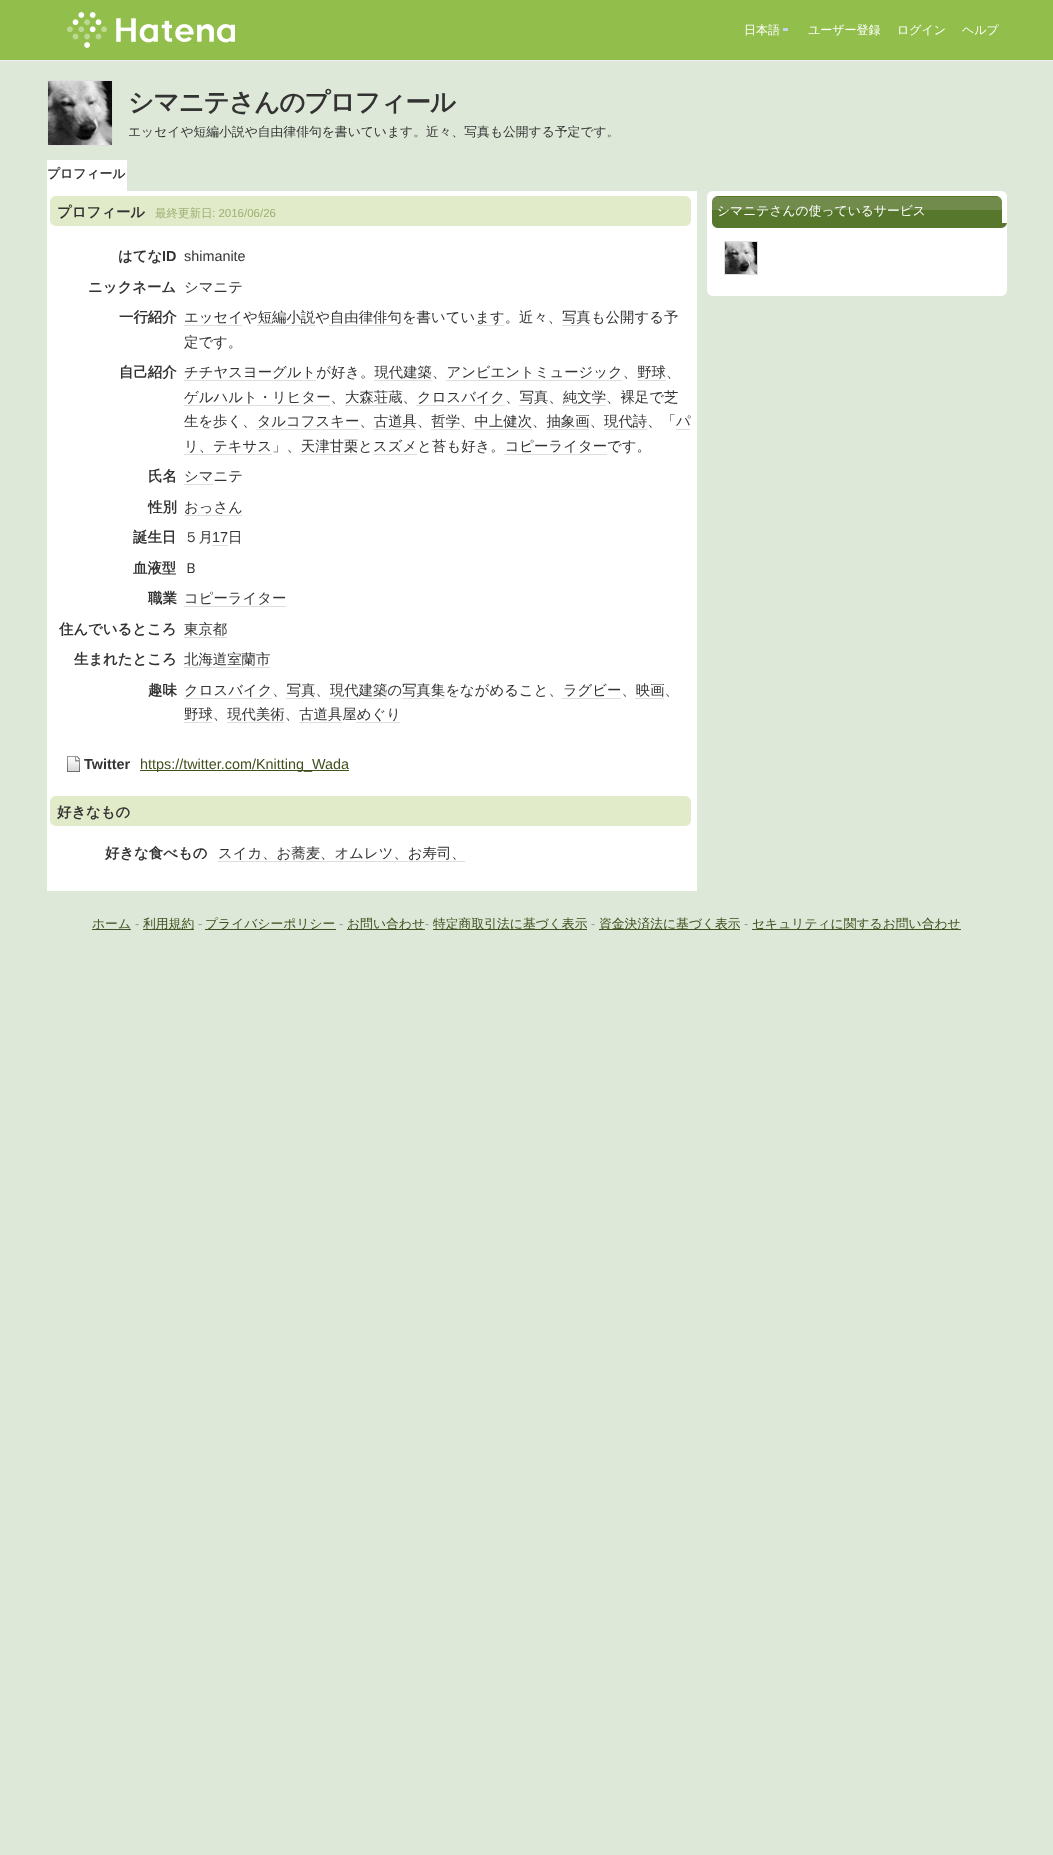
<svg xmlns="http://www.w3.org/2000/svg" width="1053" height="1855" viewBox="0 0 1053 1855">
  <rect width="100%" height="100%" fill="#dee8d8"/>
  <rect x="0" y="0" width="1053" height="60" fill="#92bf4c"/>
  <rect x="0" y="60" width="1053" height="1" fill="#f0f0f0"/>
  <image x="67" y="12" width="168" height="36" href="img1.png"/>
  <rect x="783" y="28" width="5" height="3" fill="#c6d0f3"/>
  <text x="744" y="34" font-family="WenQuanYi Zen Hei" font-size="12" font-weight="500" fill="#ffffff">日本語</text>
  <text x="808" y="34" font-family="WenQuanYi Zen Hei" font-size="12" font-weight="500" fill="#ffffff">ユーザー登録</text>
  <text x="897" y="34" font-family="WenQuanYi Zen Hei" font-size="12" font-weight="500" fill="#ffffff">ログイン</text>
  <text x="962" y="34" font-family="WenQuanYi Zen Hei" font-size="12" font-weight="500" fill="#ffffff">ヘルプ</text>
  <rect x="47.5" y="80.5" width="65" height="65" fill="none" stroke="#dedede"/>
  <image x="48" y="81" width="64" height="64" href="img2.png"/>
  <text x="128" y="111" font-family="WenQuanYi Zen Hei" font-size="25.6" font-weight="bold" letter-spacing="-1" fill="#333333">シマニテさんのプロフィール</text>
  <text x="128" y="136" font-family="WenQuanYi Zen Hei" font-size="12.8" font-weight="500" fill="#333333">エッセイや短編小説や自由律俳句を書いています。近々、写真も公開する予定です。</text>
  <rect x="47" y="160" width="80" height="31" fill="#ffffff"/>
  <text x="47" y="178" font-family="WenQuanYi Zen Hei" font-size="12.8" font-weight="bold" fill="#333333">プロフィール</text>
  <rect x="47" y="191" width="650" height="700" fill="#ffffff"/>
  <image x="50" y="196" width="641" height="30" href="img3.png"/>
  <text x="57" y="217" font-family="WenQuanYi Zen Hei" font-size="14.4" font-weight="bold" fill="#333333">プロフィール</text>
  <text x="155" y="217" font-family="WenQuanYi Zen Hei" font-size="11.5" font-weight="500" fill="#9eb073">最終更新日</text>
  <text x="212" y="217" font-family="Liberation Sans" font-size="11.5" fill="#9eb073">: 2016/06/26</text>
  <text x="118" y="261" font-family="WenQuanYi Zen Hei" font-size="14.4" font-weight="bold" fill="#333333">はてな</text>
  <text x="162" y="261" font-family="Liberation Sans" font-size="14.4" font-weight="bold" fill="#333333">ID</text>
  <text x="184" y="261" font-family="Liberation Sans" font-size="14.4" fill="#333333">shimanite</text>
  <text x="88" y="292" font-family="WenQuanYi Zen Hei" font-size="14.4" font-weight="bold" fill="#333333">ニックネーム</text>
  <text x="184" y="292" font-family="WenQuanYi Zen Hei" font-size="14.4" font-weight="500" fill="#333333">シマニテ</text>
  <text x="119" y="322" font-family="WenQuanYi Zen Hei" font-size="14.4" font-weight="bold" fill="#333333">一行紹介</text>
  <text x="184" y="322" font-family="WenQuanYi Zen Hei" font-size="14.4" font-weight="500" fill="#333333">エッセイや短編小説や自由律俳句を書いています。近々、写真も公開する予</text>
  <rect x="184" y="325" width="58" height="1" fill="#dedede"/>
  <rect x="257" y="325" width="58" height="1" fill="#dedede"/>
  <rect x="329" y="325" width="72" height="1" fill="#dedede"/>
  <rect x="475" y="325" width="29" height="1" fill="#dedede"/>
  <rect x="562" y="325" width="29" height="1" fill="#dedede"/>
  <text x="184" y="347" font-family="WenQuanYi Zen Hei" font-size="14.4" font-weight="500" fill="#333333">定です。</text>
  <text x="119" y="377" font-family="WenQuanYi Zen Hei" font-size="14.4" font-weight="bold" fill="#333333">自己紹介</text>
  <text x="184" y="377" font-family="WenQuanYi Zen Hei" font-size="14.4" font-weight="500" fill="#333333">チチヤスヨーグルトが好き。現代建築、アンビエントミュージック、野球、</text>
  <rect x="184" y="380" width="132" height="1" fill="#dedede"/>
  <rect x="374" y="380" width="58" height="1" fill="#dedede"/>
  <rect x="446" y="380" width="176" height="1" fill="#dedede"/>
  <rect x="637" y="380" width="29" height="1" fill="#dedede"/>
  <text x="184" y="402" font-family="WenQuanYi Zen Hei" font-size="14.4" font-weight="500" fill="#333333">ゲルハルト・リヒター、大森荘蔵、クロスバイク、写真、純文学、裸足で芝</text>
  <rect x="184" y="405" width="146" height="1" fill="#dedede"/>
  <rect x="345" y="405" width="57" height="1" fill="#dedede"/>
  <rect x="416" y="405" width="89" height="1" fill="#dedede"/>
  <rect x="519" y="405" width="29" height="1" fill="#dedede"/>
  <rect x="562" y="405" width="44" height="1" fill="#dedede"/>
  <text x="184" y="426" font-family="WenQuanYi Zen Hei" font-size="14.4" font-weight="500" fill="#333333">生を歩く、タルコフスキー、古道具、哲学、中上健次、抽象画、現代詩、「</text>
  <text x="676" y="426" font-family="WenQuanYi Zen Hei" font-size="14.4" font-weight="500" fill="#333333">パ</text>
  <rect x="676" y="429" width="14" height="1" fill="#dedede"/>
  <rect x="256" y="429" width="103" height="1" fill="#dedede"/>
  <rect x="373" y="429" width="43" height="1" fill="#dedede"/>
  <rect x="431" y="429" width="29" height="1" fill="#dedede"/>
  <rect x="474" y="429" width="58" height="1" fill="#dedede"/>
  <rect x="546" y="429" width="43" height="1" fill="#dedede"/>
  <rect x="604" y="429" width="43" height="1" fill="#dedede"/>
  <text x="184" y="451" font-family="WenQuanYi Zen Hei" font-size="14.4" font-weight="500" fill="#333333">リ、テキサス」、天津甘栗とスズメと苔も好き。コピーライターです。</text>
  <rect x="184" y="454" width="88" height="1" fill="#dedede"/>
  <rect x="300" y="454" width="58" height="1" fill="#dedede"/>
  <rect x="373" y="454" width="44" height="1" fill="#dedede"/>
  <rect x="504" y="454" width="103" height="1" fill="#dedede"/>
  <text x="148" y="481" font-family="WenQuanYi Zen Hei" font-size="14.4" font-weight="bold" fill="#333333">氏名</text>
  <text x="184" y="481" font-family="WenQuanYi Zen Hei" font-size="14.4" font-weight="500" fill="#333333">シマニテ</text>
  <rect x="184" y="484" width="29" height="1" fill="#dedede"/>
  <text x="148" y="512" font-family="WenQuanYi Zen Hei" font-size="14.4" font-weight="bold" fill="#333333">性別</text>
  <text x="184" y="512" font-family="WenQuanYi Zen Hei" font-size="14.4" font-weight="500" fill="#333333">おっさん</text>
  <rect x="184" y="515" width="58" height="1" fill="#dedede"/>
  <text x="133" y="542" font-family="WenQuanYi Zen Hei" font-size="14.4" font-weight="bold" fill="#333333">誕生日</text>
  <text x="184" y="542" font-family="WenQuanYi Zen Hei" font-size="14.4" font-weight="500" fill="#333333">５月</text>
  <text x="212" y="542" font-family="Liberation Sans" font-size="14.4" fill="#333333">17</text>
  <rect x="212" y="545" width="16" height="1" fill="#dedede"/>
  <text x="228" y="542" font-family="WenQuanYi Zen Hei" font-size="14.4" font-weight="500" fill="#333333">日</text>
  <text x="133" y="573" font-family="WenQuanYi Zen Hei" font-size="14.4" font-weight="bold" fill="#333333">血液型</text>
  <text x="184" y="573" font-family="WenQuanYi Zen Hei" font-size="14.4" font-weight="500" fill="#333333">Ｂ</text>
  <text x="148" y="603" font-family="WenQuanYi Zen Hei" font-size="14.4" font-weight="bold" fill="#333333">職業</text>
  <text x="184" y="603" font-family="WenQuanYi Zen Hei" font-size="14.4" font-weight="500" fill="#333333">コピーライター</text>
  <rect x="184" y="606" width="102" height="1" fill="#dedede"/>
  <text x="59" y="634" font-family="WenQuanYi Zen Hei" font-size="14.4" font-weight="bold" fill="#333333">住んでいるところ</text>
  <text x="184" y="634" font-family="WenQuanYi Zen Hei" font-size="14.4" font-weight="500" fill="#333333">東京都</text>
  <rect x="184" y="637" width="43" height="1" fill="#dedede"/>
  <text x="74" y="664" font-family="WenQuanYi Zen Hei" font-size="14.4" font-weight="bold" fill="#333333">生まれたところ</text>
  <text x="184" y="664" font-family="WenQuanYi Zen Hei" font-size="14.4" font-weight="500" fill="#333333">北海道室蘭市</text>
  <rect x="184" y="667" width="86" height="1" fill="#dedede"/>
  <text x="148" y="695" font-family="WenQuanYi Zen Hei" font-size="14.4" font-weight="bold" fill="#333333">趣味</text>
  <text x="184" y="695" font-family="WenQuanYi Zen Hei" font-size="14.4" font-weight="500" fill="#333333">クロスバイク、写真、現代建築の写真集をながめること、ラグビー、映画、</text>
  <rect x="184" y="698" width="88" height="1" fill="#dedede"/>
  <rect x="286" y="698" width="29" height="1" fill="#dedede"/>
  <rect x="329" y="698" width="58" height="1" fill="#dedede"/>
  <rect x="402" y="698" width="43" height="1" fill="#dedede"/>
  <rect x="562" y="698" width="59" height="1" fill="#dedede"/>
  <rect x="635" y="698" width="29" height="1" fill="#dedede"/>
  <text x="184" y="719" font-family="WenQuanYi Zen Hei" font-size="14.4" font-weight="500" fill="#333333">野球、現代美術、古道具屋めぐり</text>
  <rect x="184" y="722" width="28" height="1" fill="#dedede"/>
  <rect x="227" y="722" width="57" height="1" fill="#dedede"/>
  <rect x="299" y="722" width="43" height="1" fill="#dedede"/>
  <rect x="356" y="722" width="44" height="1" fill="#dedede"/>
  <image x="67" y="756" width="13" height="16" href="img4.png"/>
  <text x="84" y="769" font-family="Liberation Sans" font-size="14.4" font-weight="bold" fill="#333333">Twitter</text>
  <rect x="140" y="770" width="209" height="1" fill="#40501e"/>
  <text x="140" y="769" font-family="Liberation Sans" font-size="14.4" fill="#40501e">https://twitter.com/Knitting_Wada</text>
  <image x="50" y="796" width="641" height="30" href="img3.png"/>
  <text x="57" y="817" font-family="WenQuanYi Zen Hei" font-size="14.4" font-weight="bold" fill="#333333">好きなもの</text>
  <text x="105" y="858" font-family="WenQuanYi Zen Hei" font-size="14.4" font-weight="bold" fill="#333333">好きな食べもの</text>
  <text x="218" y="858" font-family="WenQuanYi Zen Hei" font-size="14.4" font-weight="500" fill="#333333">スイカ、お蕎麦、オムレツ、お寿司、</text>
  <rect x="218" y="861" width="247" height="1" fill="#dedede"/>
  <image x="707" y="291" width="300" height="5" href="img5.png"/>
  <image x="707" y="191" width="300" height="32" href="img6.png"/>
  <text x="717" y="215" font-family="WenQuanYi Zen Hei" font-size="12.8" font-weight="500" fill="#ffffff">シマニテさんの使っているサービス</text>
  <rect x="707" y="223" width="300" height="68" fill="#ffffff"/>
  <image x="712" y="223" width="295" height="5" href="img7.png"/>
  <rect x="724.5" y="241.5" width="33" height="33" fill="none" stroke="#dedede"/>
  <image x="725" y="242" width="32" height="32" href="img8.png"/>
  <rect x="92" y="929" width="39" height="1" fill="#40501e"/>
  <text x="92" y="928" font-family="WenQuanYi Zen Hei" font-size="12.8" font-weight="500" fill="#40501e">ホーム</text>
  <text x="135" y="928" font-family="Liberation Sans" font-size="12.8" fill="#999999">-</text>
  <rect x="143" y="929" width="51" height="1" fill="#40501e"/>
  <text x="143" y="928" font-family="WenQuanYi Zen Hei" font-size="12.8" font-weight="500" fill="#40501e">利用規約</text>
  <text x="198" y="928" font-family="Liberation Sans" font-size="12.8" fill="#999999">-</text>
  <rect x="205" y="929" width="131" height="1" fill="#40501e"/>
  <text x="205" y="928" font-family="WenQuanYi Zen Hei" font-size="12.8" font-weight="500" fill="#40501e">プライバシーポリシー</text>
  <text x="339" y="928" font-family="Liberation Sans" font-size="12.8" fill="#999999">-</text>
  <rect x="347" y="929" width="78" height="1" fill="#40501e"/>
  <text x="347" y="928" font-family="WenQuanYi Zen Hei" font-size="12.8" font-weight="500" fill="#40501e">お問い合わせ</text>
  <text x="425" y="928" font-family="Liberation Sans" font-size="12.8" fill="#999999">-</text>
  <rect x="433" y="929" width="154" height="1" fill="#40501e"/>
  <text x="433" y="928" font-family="WenQuanYi Zen Hei" font-size="12.8" font-weight="500" fill="#40501e">特定商取引法に基づく表示</text>
  <text x="591" y="928" font-family="Liberation Sans" font-size="12.8" fill="#999999">-</text>
  <rect x="599" y="929" width="141" height="1" fill="#40501e"/>
  <text x="599" y="928" font-family="WenQuanYi Zen Hei" font-size="12.8" font-weight="500" fill="#40501e">資金決済法に基づく表示</text>
  <text x="744" y="928" font-family="Liberation Sans" font-size="12.8" fill="#999999">-</text>
  <rect x="752" y="929" width="209" height="1" fill="#40501e"/>
  <text x="752" y="928" font-family="WenQuanYi Zen Hei" font-size="12.8" font-weight="500" fill="#40501e">セキュリティに関するお問い合わせ</text>
</svg>
